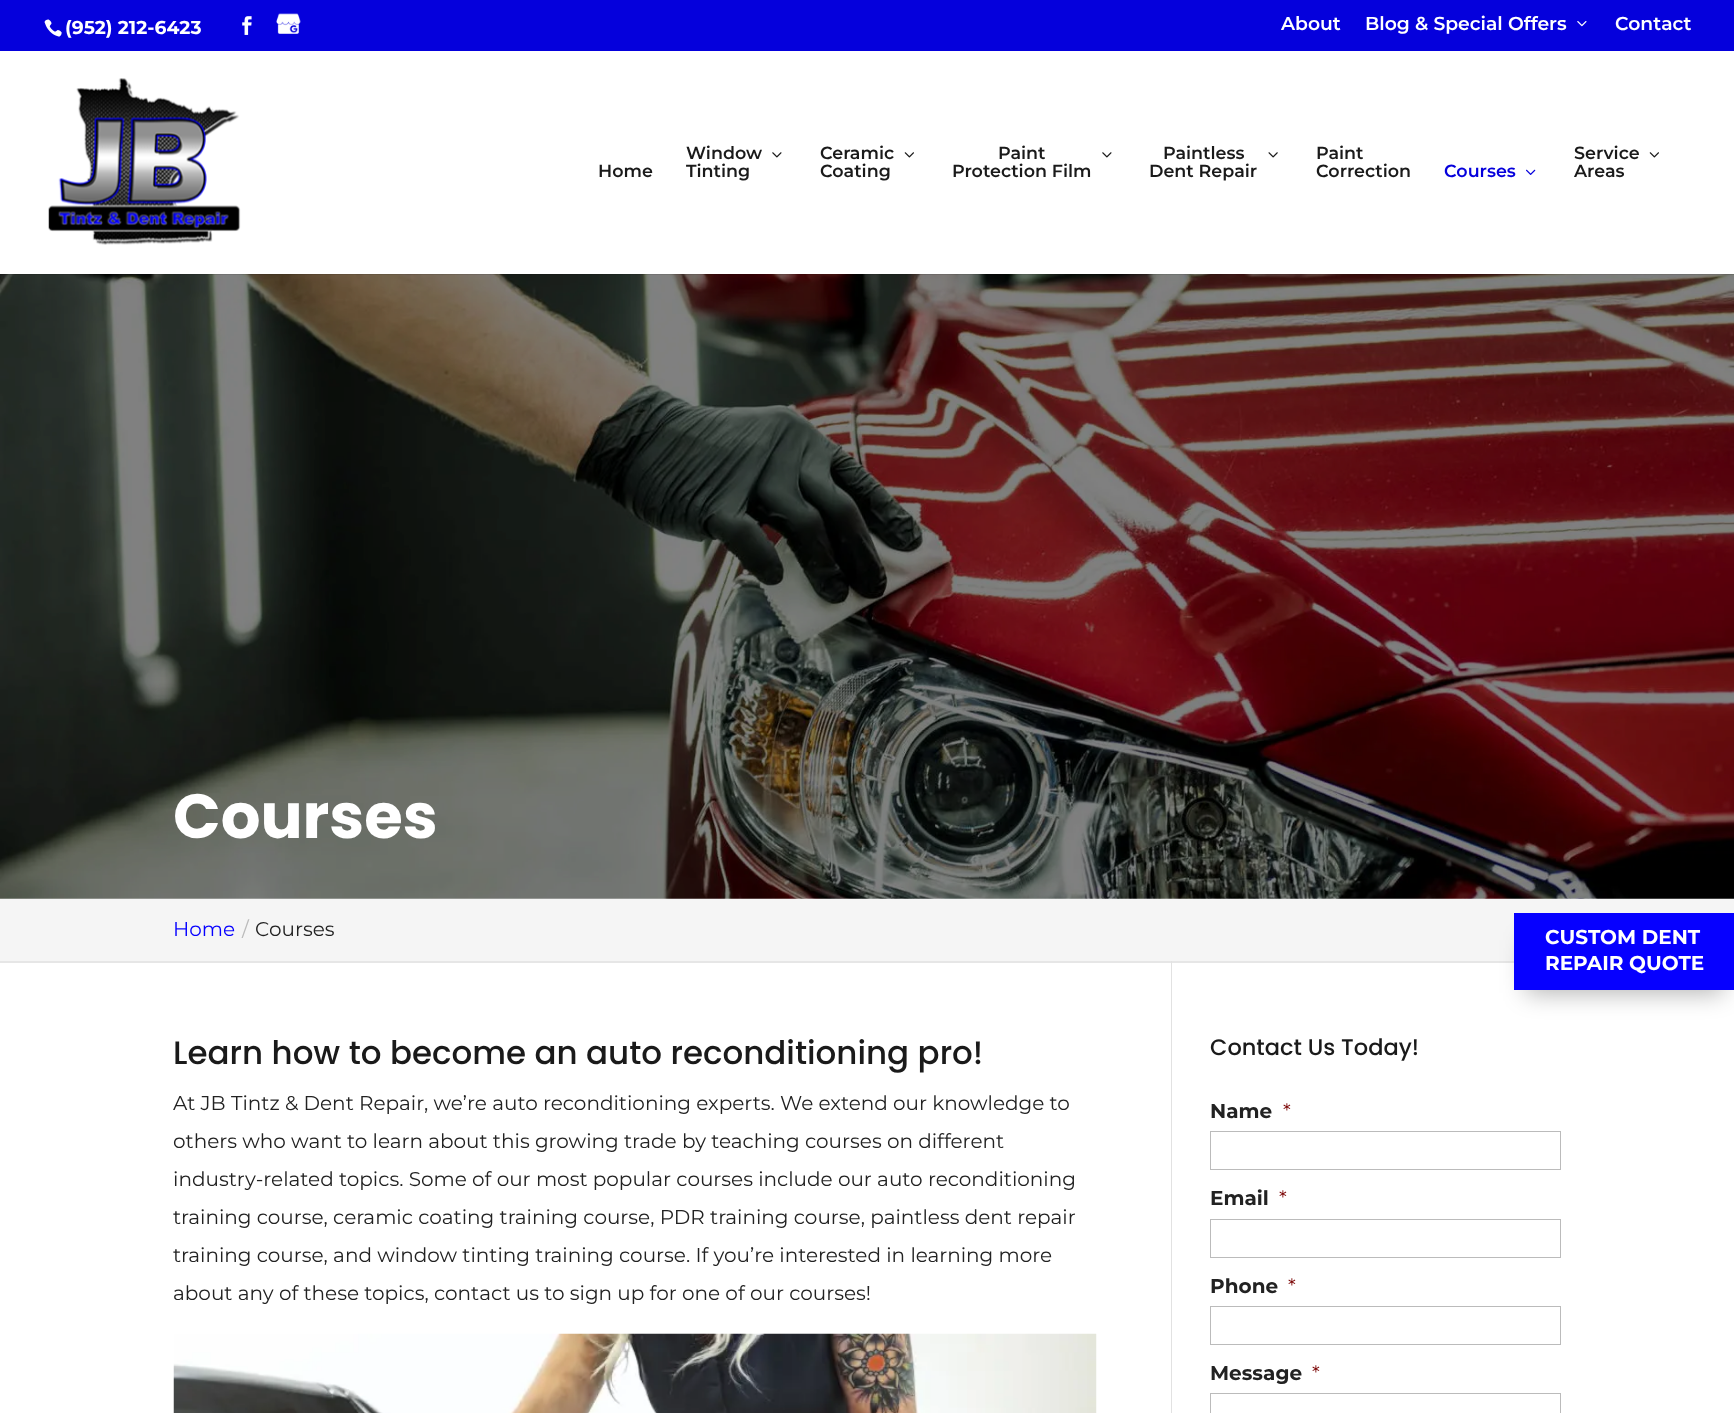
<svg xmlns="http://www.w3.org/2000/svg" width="1734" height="1413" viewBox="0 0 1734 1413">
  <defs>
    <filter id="blur1" x="-50%" y="-200%" width="200%" height="500%"><feGaussianBlur stdDeviation="12.5"/></filter>
  </defs>
  <rect width="100%" height="100%" fill="#ffffff"/>
  <rect x="0" y="0" width="1734" height="51" fill="#0500dc"/>
  <image x="44" y="19" width="18" height="18" href="img1.png"/>
  <text x="65" y="34" font-family="Montserrat" font-size="18.75" font-weight="bold" fill="#ffffff">(952) 212-6423</text>
  <image x="242" y="16" width="10" height="19" href="img2.png"/>
  <image x="276" y="13" width="25" height="21" href="img3.png"/>
  <text x="1281" y="30" font-family="Montserrat" font-size="18.75" font-weight="600" fill="#ffffff">About</text>
  <text x="1365" y="30" font-family="Montserrat" font-size="18.75" font-weight="600" fill="#ffffff">Blog &amp; Special Offers</text>
  <image x="1577" y="21" width="10" height="6" href="img4.png"/>
  <text x="1615" y="30" font-family="Montserrat" font-size="18.75" font-weight="600" fill="#ffffff">Contact</text>
  <image x="0" y="274" width="1734" height="625" href="img10.png"/>
  <rect x="0" y="274" width="1734" height="1" fill="#000000" fill-opacity="0.1"/>
  <image x="48" y="78" width="193" height="167" href="img5.png"/>
  <text x="598" y="177" font-family="Montserrat" font-size="17.5" font-weight="600" fill="#1a1a1a">Home</text>
  <text x="686" y="159" font-family="Montserrat" font-size="17.5" font-weight="600" fill="#1a1a1a">Window</text>
  <image x="772" y="152" width="10" height="6" href="img6.png"/>
  <text x="686" y="177" font-family="Montserrat" font-size="17.5" font-weight="600" fill="#1a1a1a">Tinting</text>
  <text x="820" y="159" font-family="Montserrat" font-size="17.5" font-weight="600" fill="#1a1a1a">Ceramic</text>
  <image x="904" y="152" width="10" height="6" href="img7.png"/>
  <text x="820" y="177" font-family="Montserrat" font-size="17.5" font-weight="600" fill="#1a1a1a">Coating</text>
  <text x="998" y="159" font-family="Montserrat" font-size="17.5" font-weight="600" fill="#1a1a1a">Paint</text>
  <image x="1102" y="152" width="10" height="6" href="img6.png"/>
  <text x="952" y="177" font-family="Montserrat" font-size="17.5" font-weight="600" fill="#1a1a1a">Protection Film</text>
  <text x="1163" y="159" font-family="Montserrat" font-size="17.5" font-weight="600" fill="#1a1a1a">Paintless</text>
  <image x="1268" y="152" width="10" height="6" href="img8.png"/>
  <text x="1149" y="177" font-family="Montserrat" font-size="17.5" font-weight="600" fill="#1a1a1a">Dent Repair</text>
  <text x="1316" y="159" font-family="Montserrat" font-size="17.5" font-weight="600" fill="#1a1a1a">Paint</text>
  <text x="1316" y="177" font-family="Montserrat" font-size="17.5" font-weight="600" fill="#1a1a1a">Correction</text>
  <text x="1444" y="177" font-family="Montserrat" font-size="17.5" font-weight="600" fill="#0500dc">Courses</text>
  <image x="1526" y="169" width="10" height="6" href="img9.png"/>
  <text x="1574" y="159" font-family="Montserrat" font-size="17.5" font-weight="600" fill="#1a1a1a">Service</text>
  <image x="1649" y="152" width="10" height="6" href="img7.png"/>
  <text x="1574" y="177" font-family="Montserrat" font-size="17.5" font-weight="600" fill="#1a1a1a">Areas</text>
  <text x="173" y="838" font-family="Poppins" font-size="62.5" font-weight="bold" fill="#ffffff">Courses</text>
  <rect x="0" y="961" width="1514" height="2" fill="#e6e6e6"/>
  <rect x="0" y="899" width="1734" height="62" fill="#f5f5f5"/>
  <text x="173" y="936" font-family="Montserrat" font-size="20" fill="#0600ff">Home</text>
  <text x="242" y="936" font-family="Montserrat" font-size="20" fill="#bbbbbb">/</text>
  <text x="255" y="936" font-family="Montserrat" font-size="20" fill="#222222">Courses</text>
  <rect x="1526" y="940" width="197" height="53" fill="#000000" fill-opacity="0.3" filter="url(#blur1)"/>
  <rect x="1514" y="913" width="220" height="77" fill="#0600ff"/>
  <text x="1545" y="944" font-family="Montserrat" font-size="20" font-weight="bold" fill="#ffffff">CUSTOM DENT</text>
  <text x="1545" y="970" font-family="Montserrat" font-size="20" font-weight="bold" fill="#ffffff">REPAIR QUOTE</text>
  <rect x="1171" y="961" width="1" height="452" fill="#e2e2e2"/>
  <text x="173" y="1064" font-family="Poppins" font-size="32.5" font-weight="500" fill="#1a1a1a">Learn how to become an auto reconditioning pro!</text>
  <text x="173" y="1110" font-family="Montserrat" font-size="20" fill="#222222">At JB Tintz &amp; Dent Repair, we’re auto reconditioning experts. We extend our knowledge to</text>
  <text x="173" y="1148" font-family="Montserrat" font-size="20" fill="#222222">others who want to learn about this growing trade by teaching courses on different</text>
  <text x="173" y="1186" font-family="Montserrat" font-size="20" fill="#222222">industry-related topics. Some of our most popular courses include our auto reconditioning</text>
  <text x="173" y="1224" font-family="Montserrat" font-size="20" fill="#222222">training course, ceramic coating training course, PDR training course, paintless dent repair</text>
  <text x="173" y="1262" font-family="Montserrat" font-size="20" fill="#222222">training course, and window tinting training course. If you’re interested in learning more</text>
  <text x="173" y="1300" font-family="Montserrat" font-size="20" fill="#222222">about any of these topics, contact us to sign up for one of our courses!</text>
  <image x="173" y="1333" width="924" height="80" href="img11.png"/>
  <text x="1210" y="1055" font-family="Poppins" font-size="22.5" font-weight="500" fill="#1a1a1a">Contact Us Today!</text>
  <text x="1210" y="1118" font-family="Montserrat" font-size="20" font-weight="bold" fill="#222222">Name</text>
  <text x="1283" y="1118" font-family="Montserrat" font-size="20" fill="#790000">*</text>
  <rect x="1210.5" y="1131.5" width="350" height="38" fill="none" stroke="#bbbbbb"/>
  <text x="1210" y="1205" font-family="Montserrat" font-size="20" font-weight="bold" fill="#222222">Email</text>
  <text x="1279" y="1205" font-family="Montserrat" font-size="20" fill="#790000">*</text>
  <rect x="1210.5" y="1219.5" width="350" height="38" fill="none" stroke="#bbbbbb"/>
  <text x="1210" y="1293" font-family="Montserrat" font-size="20" font-weight="bold" fill="#222222">Phone</text>
  <text x="1288" y="1293" font-family="Montserrat" font-size="20" fill="#790000">*</text>
  <rect x="1210.5" y="1306.5" width="350" height="38" fill="none" stroke="#bbbbbb"/>
  <text x="1210" y="1380" font-family="Montserrat" font-size="20" font-weight="bold" fill="#222222">Message</text>
  <text x="1312" y="1380" font-family="Montserrat" font-size="20" fill="#790000">*</text>
  <rect x="1210.5" y="1393.5" width="350" height="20" fill="none" stroke="#bbbbbb"/>
</svg>
